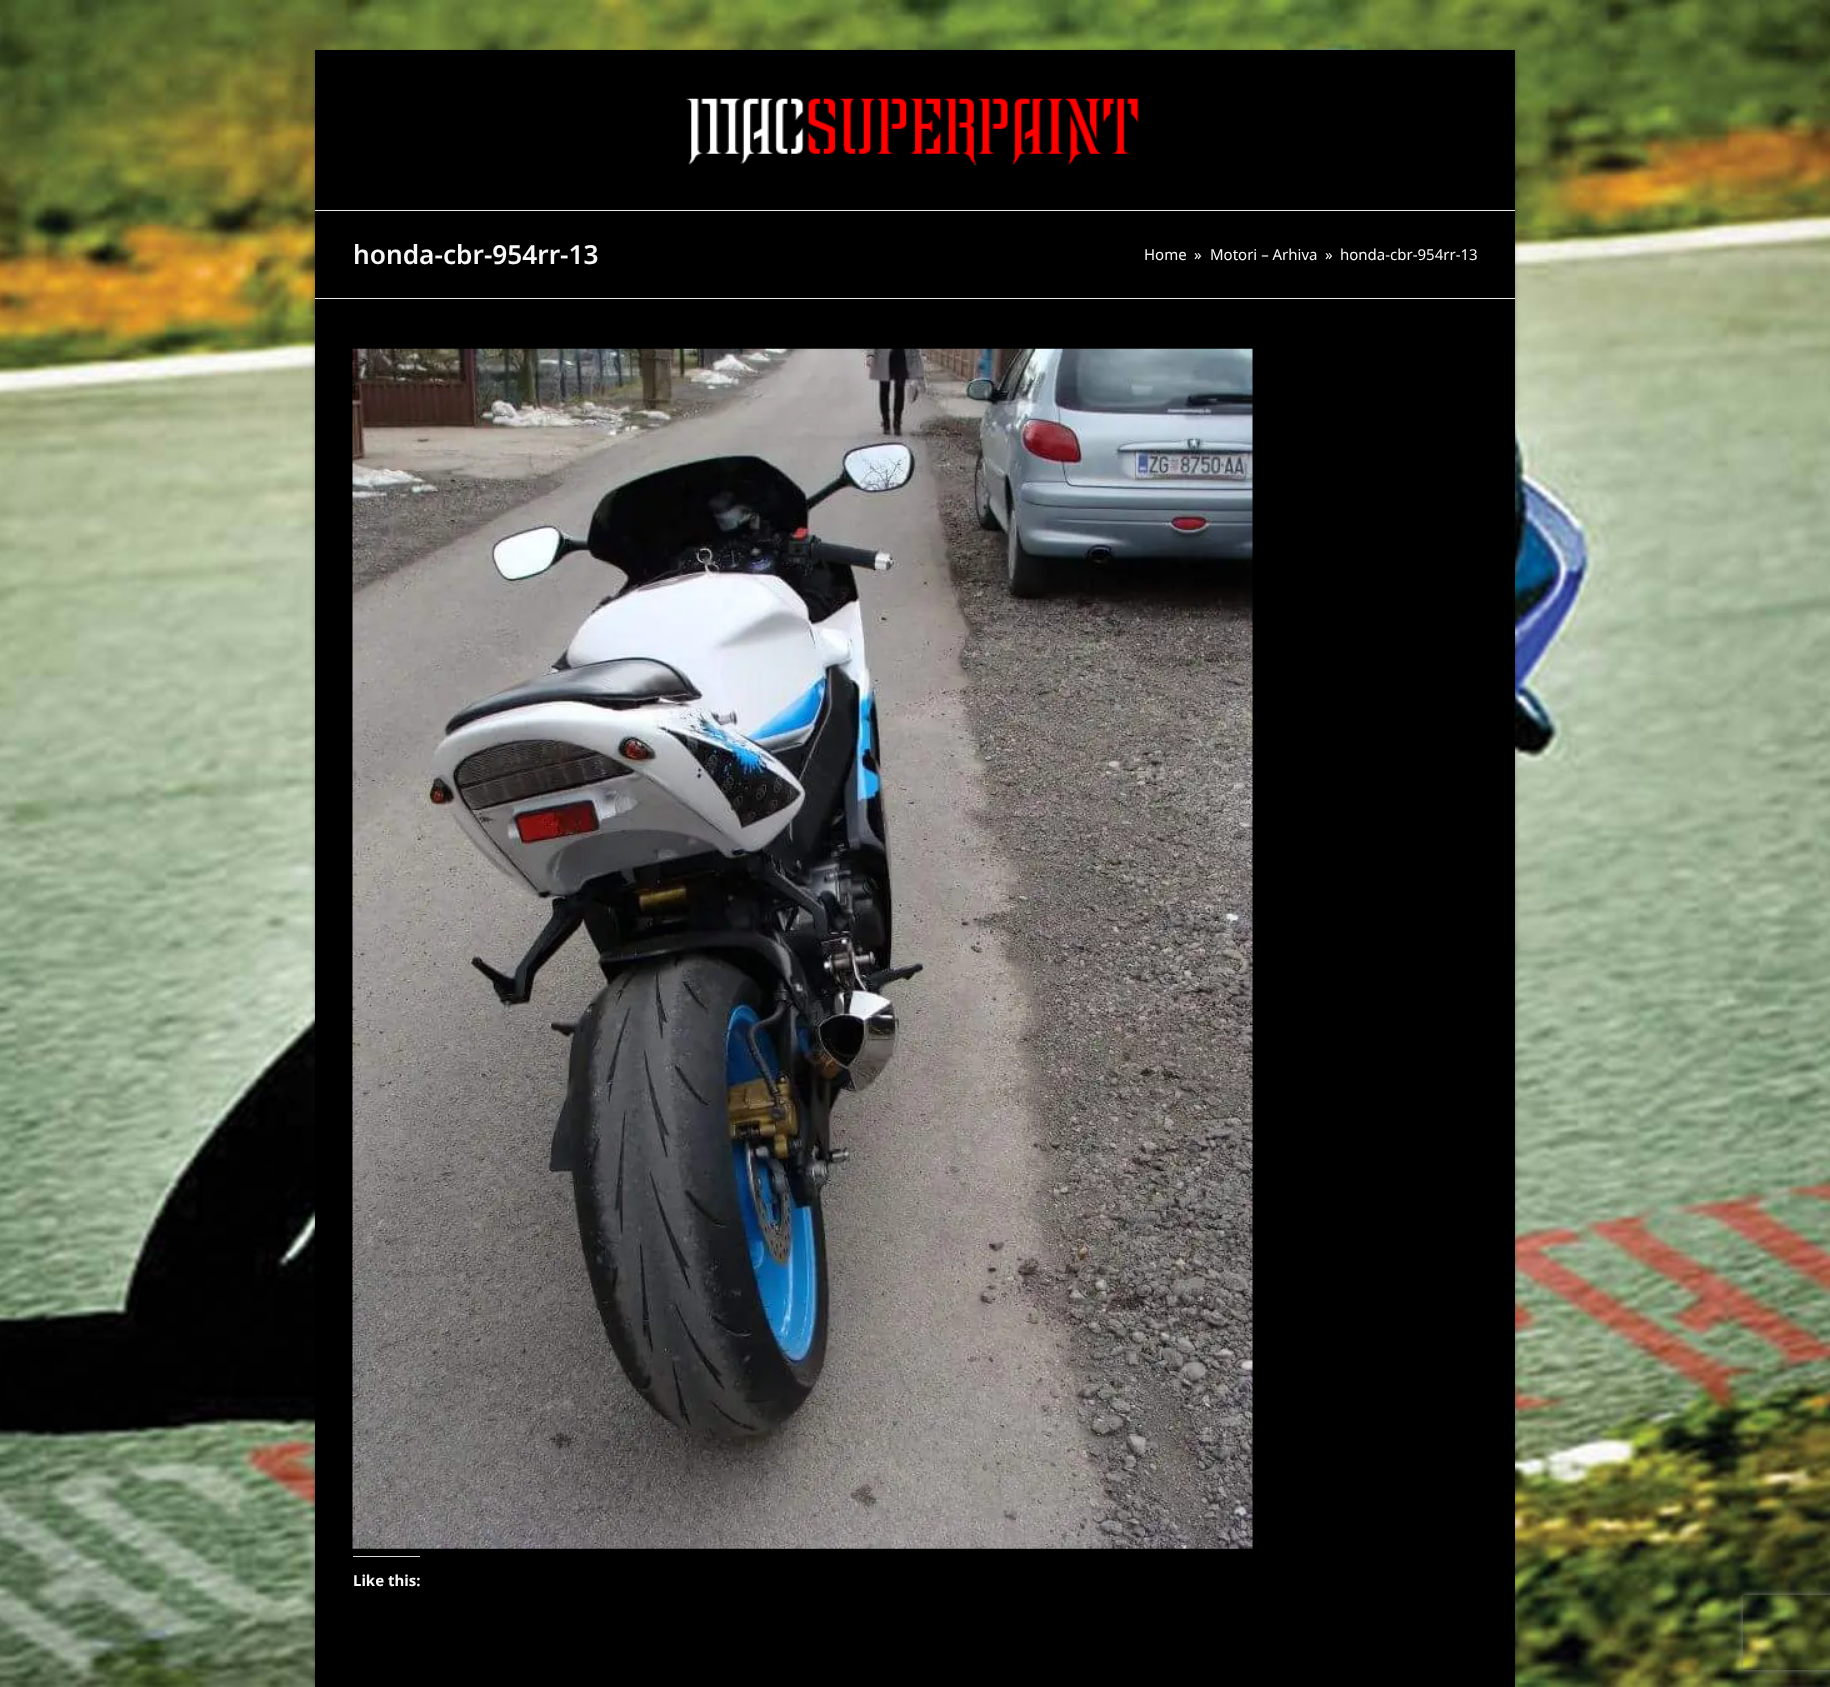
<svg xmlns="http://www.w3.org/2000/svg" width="1830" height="1687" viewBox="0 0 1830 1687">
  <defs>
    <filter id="blur1" x="-50%" y="-200%" width="200%" height="500%"><feGaussianBlur stdDeviation="2.5"/></filter>
    <clipPath id="clip1"><path d="M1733 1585H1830V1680H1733ZM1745.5 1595H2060.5C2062 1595 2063 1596 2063 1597.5V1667.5C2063 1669 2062 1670 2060.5 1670H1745.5C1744 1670 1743 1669 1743 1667.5V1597.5C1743 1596 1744 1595 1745.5 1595Z" clip-rule="evenodd"/></clipPath>
    <filter id="blur2" x="-50%" y="-200%" width="200%" height="500%"><feGaussianBlur stdDeviation="3"/></filter>
  </defs>
  <rect width="100%" height="100%" fill="#ffffff"/>
  <image x="0" y="0" width="1830" height="1687" href="img1.png"/>
  <rect x="315" y="51" width="1200" height="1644" fill="#000000" fill-opacity="0.25" filter="url(#blur1)"/>
  <rect x="315" y="50" width="1200" height="1637" fill="#000000"/>
  <image x="686" y="98" width="453" height="68" href="img2.png"/>
  <rect x="315" y="210" width="1200" height="1" fill="#eeeeee"/>
  <rect x="315" y="298" width="1200" height="1" fill="#eeeeee"/>
  <text x="353" y="264" font-family="Noto Sans" font-size="26.25" font-weight="600" fill="#f7f7f7">honda-cbr-954rr-13</text>
  <text x="1144" y="260" font-family="Noto Sans" font-size="15" fill="#f7f7f7">Home</text>
  <text x="1194" y="260" font-family="Noto Sans" font-size="15" fill="#f7f7f7">»</text>
  <text x="1210" y="260" font-family="Noto Sans" font-size="15" fill="#f7f7f7">Motori – Arhiva</text>
  <text x="1325" y="260" font-family="Noto Sans" font-size="15" fill="#f7f7f7">»</text>
  <text x="1340" y="260" font-family="Noto Sans" font-size="15" fill="#f7f7f7">honda-cbr-954rr-13</text>
  <image x="352" y="348" width="901" height="1201" href="img3.png"/>
  <rect x="353" y="1556" width="67" height="1" fill="#dcdcde"/>
  <text x="353" y="1586" font-family="Noto Sans" font-size="15" font-weight="bold" fill="#f7f7f7">Like this:</text>
  <g clip-path="url(#clip1)">
    <rect x="1743" y="1595" width="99" height="75" rx="2.5" fill="#808080" filter="url(#blur2)"/>
  </g>
</svg>
